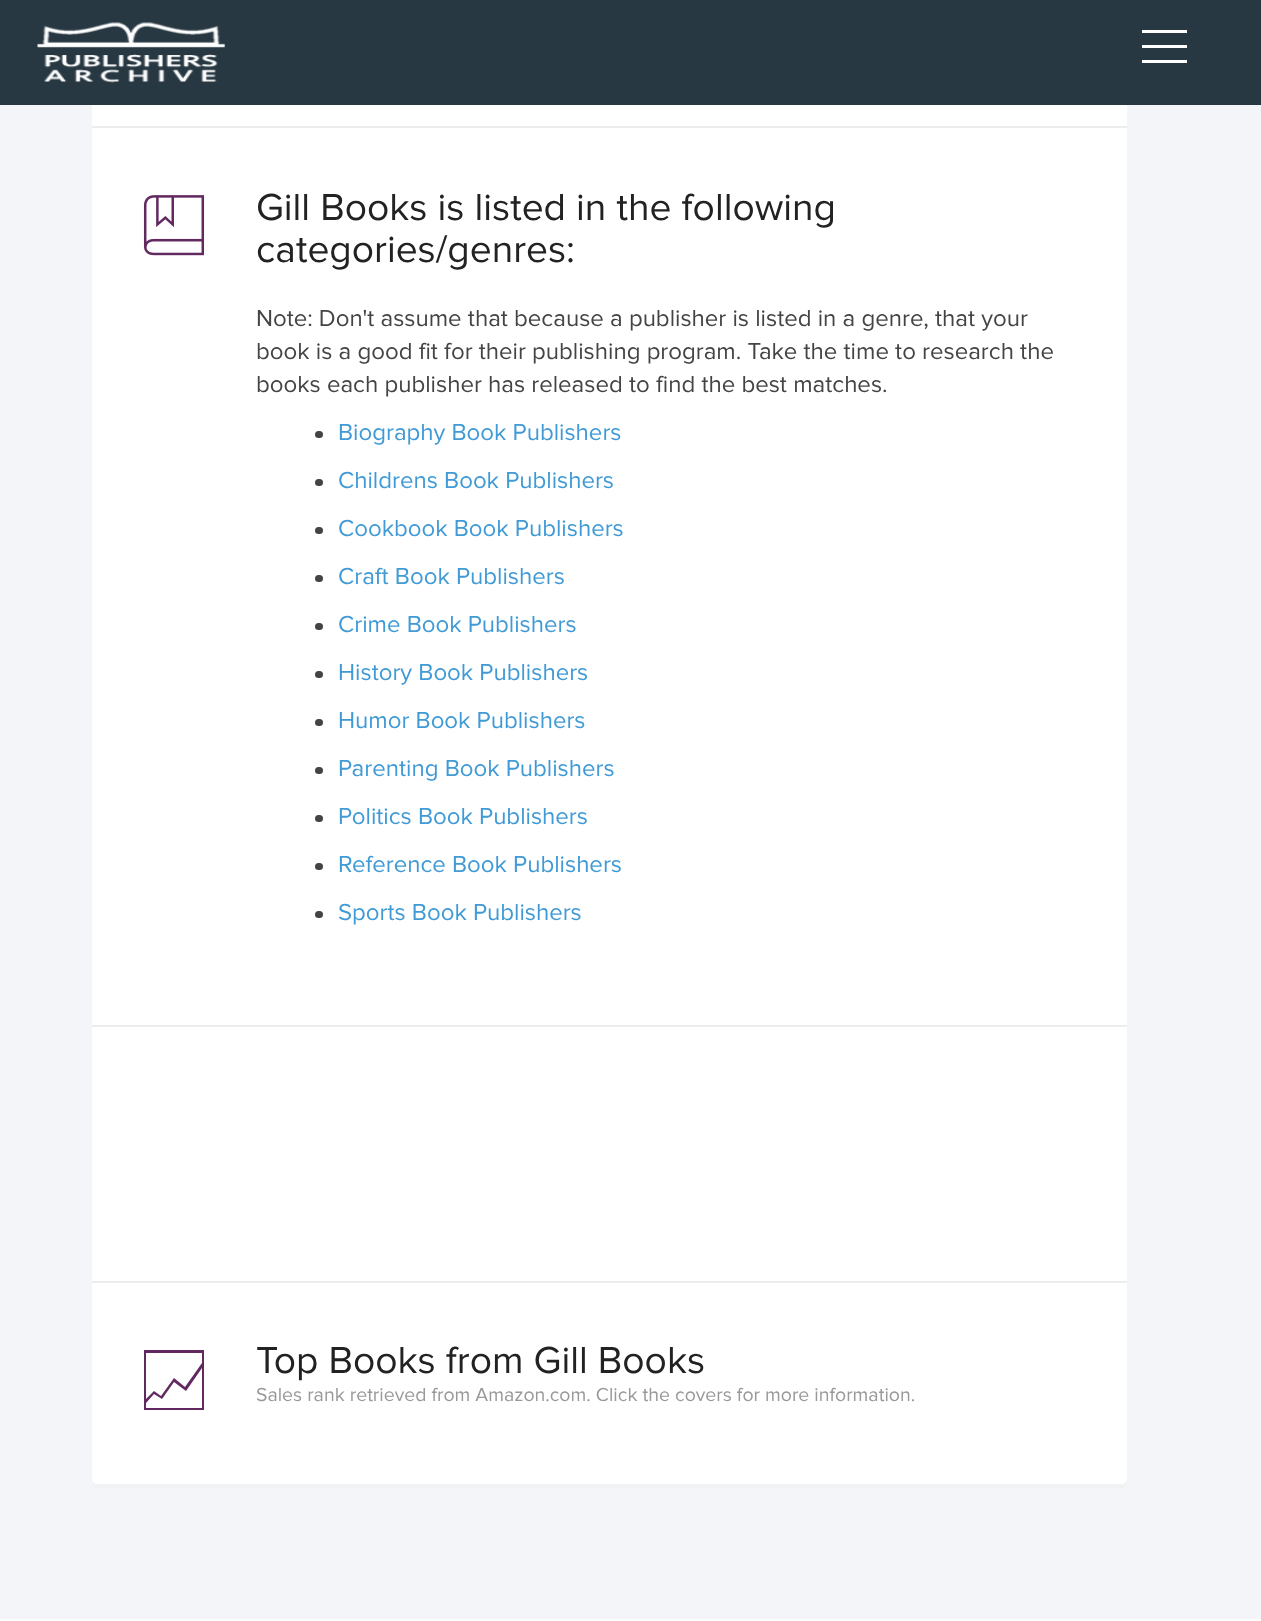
<svg xmlns="http://www.w3.org/2000/svg" width="1261" height="1621" viewBox="0 0 1261 1621">
  <rect width="100%" height="100%" fill="#ffffff"/>
  <rect x="0" y="105" width="1261" height="1514" fill="#f3f5f8"/>
  <path d="M92 1481V1483C92 1486 94 1488 97 1488H1122C1125 1488 1127 1486 1127 1483V-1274L1126-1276V1479C1126 1481 1124 1484 1122 1484H96C94 1484 93 1483 92 1481Z" fill="#f0f2f4"/>
  <rect x="92" y="-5" width="1035" height="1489" rx="5" fill="#ffffff"/>
  <rect x="0" y="0" width="1261" height="105" fill="#283842"/>
  <image x="37" y="22" width="188" height="61" href="img1.png"/>
  <rect x="1142" y="45" width="45" height="3" fill="#ffffff"/>
  <rect x="1142" y="30" width="45" height="3" fill="#ffffff"/>
  <rect x="1142" y="60" width="45" height="3" fill="#ffffff"/>
  <rect x="92" y="126" width="1035" height="2" fill="#ededed"/>
  <image x="143" y="195" width="62" height="61" href="img2.png"/>
  <text x="256" y="220" font-family="Proxima Nova" font-size="39" fill="#222222">Gill Books is listed in the following</text>
  <text x="256" y="262" font-family="Proxima Nova" font-size="39" fill="#222222">categories/genres:</text>
  <text x="256" y="326" font-family="Proxima Nova" font-size="24" fill="#444444">Note: Don't assume that because a publisher is listed in a genre, that your</text>
  <text x="256" y="359" font-family="Proxima Nova" font-size="24" fill="#444444">book is a good fit for their publishing program. Take the time to research the</text>
  <text x="256" y="392" font-family="Proxima Nova" font-size="24" fill="#444444">books each publisher has released to find the best matches.</text>
  <rect x="315" y="431" width="8" height="7" rx="3.5" fill="#444444"/>
  <text x="338" y="440" font-family="Proxima Nova" font-size="24" fill="#3f9ad6">Biography Book Publishers</text>
  <rect x="315" y="479" width="8" height="7" rx="3.5" fill="#444444"/>
  <text x="338" y="488" font-family="Proxima Nova" font-size="24" fill="#3f9ad6">Childrens Book Publishers</text>
  <rect x="315" y="527" width="8" height="7" rx="3.5" fill="#444444"/>
  <text x="338" y="536" font-family="Proxima Nova" font-size="24" fill="#3f9ad6">Cookbook Book Publishers</text>
  <rect x="315" y="575" width="8" height="7" rx="3.5" fill="#444444"/>
  <text x="338" y="584" font-family="Proxima Nova" font-size="24" fill="#3f9ad6">Craft Book Publishers</text>
  <rect x="315" y="623" width="8" height="7" rx="3.5" fill="#444444"/>
  <text x="338" y="632" font-family="Proxima Nova" font-size="24" fill="#3f9ad6">Crime Book Publishers</text>
  <rect x="315" y="671" width="8" height="7" rx="3.5" fill="#444444"/>
  <text x="338" y="680" font-family="Proxima Nova" font-size="24" fill="#3f9ad6">History Book Publishers</text>
  <rect x="315" y="719" width="8" height="7" rx="3.5" fill="#444444"/>
  <text x="338" y="728" font-family="Proxima Nova" font-size="24" fill="#3f9ad6">Humor Book Publishers</text>
  <rect x="315" y="767" width="8" height="7" rx="3.5" fill="#444444"/>
  <text x="338" y="776" font-family="Proxima Nova" font-size="24" fill="#3f9ad6">Parenting Book Publishers</text>
  <rect x="315" y="815" width="8" height="7" rx="3.5" fill="#444444"/>
  <text x="338" y="824" font-family="Proxima Nova" font-size="24" fill="#3f9ad6">Politics Book Publishers</text>
  <rect x="315" y="863" width="8" height="7" rx="3.5" fill="#444444"/>
  <text x="338" y="872" font-family="Proxima Nova" font-size="24" fill="#3f9ad6">Reference Book Publishers</text>
  <rect x="315" y="911" width="8" height="7" rx="3.5" fill="#444444"/>
  <text x="338" y="920" font-family="Proxima Nova" font-size="24" fill="#3f9ad6">Sports Book Publishers</text>
  <rect x="92" y="1025" width="1035" height="2" fill="#ededed"/>
  <rect x="92" y="1281" width="1035" height="2" fill="#ededed"/>
  <path d="M144 1350V1410H204V1350ZM202 1353V1363L185 1387L174 1378L161 1396L154 1391L146 1399V1353ZM146 1408V1403L154 1394L162 1399L174 1382L186 1391L202 1368V1408Z" fill="#622960"/>
  <text x="256" y="1373" font-family="Proxima Nova" font-size="39" fill="#222222">Top Books from Gill Books</text>
  <text x="256" y="1401" font-family="Proxima Nova" font-size="19.5" fill="#999999">Sales rank retrieved from Amazon.com. Click the covers for more information.</text>
</svg>
